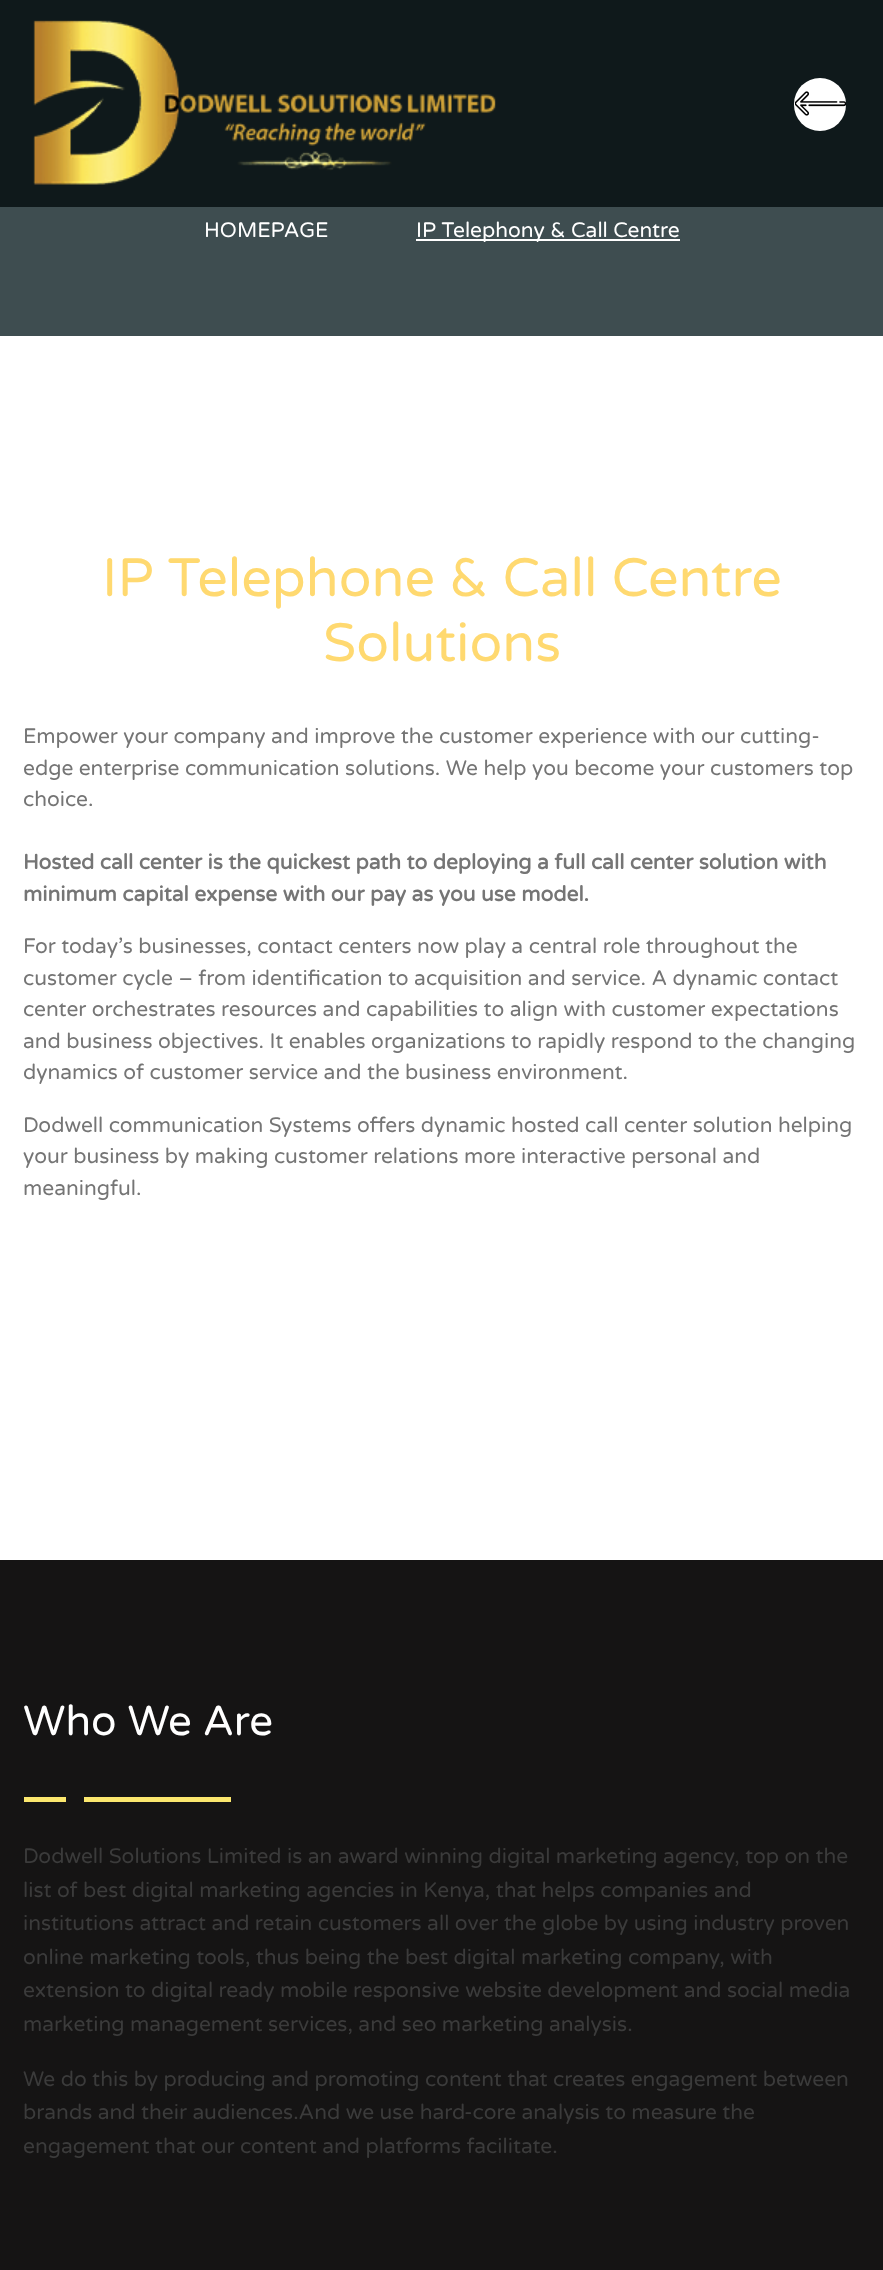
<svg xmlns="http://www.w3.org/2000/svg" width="883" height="2270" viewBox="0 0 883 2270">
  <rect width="100%" height="100%" fill="#ffffff"/>
  <rect x="0" y="0" width="883" height="207" fill="#0f191b"/>
  <image x="33" y="20" width="463" height="165" href="img1.png"/>
  <rect x="794" y="78" width="52" height="53" rx="26" fill="#ffffff"/>
  <image x="795" y="91" width="51" height="25" href="img2.png"/>
  <rect x="0" y="207" width="883" height="129" fill="#3e4d50"/>
  <text x="204" y="237" font-family="Varela Round" font-size="21" fill="#ffffff">HOMEPAGE</text>
  <rect x="416" y="239" width="264" height="2" fill="#ffffff"/>
  <text x="416" y="237" font-family="Varela Round" font-size="21" fill="#ffffff">IP Telephony &amp; Call Centre</text>
  <text x="102" y="596" font-family="Varela Round" font-size="54" fill="#ffd970">IP Telephone &amp; Call Centre</text>
  <text x="323" y="661" font-family="Varela Round" font-size="54" fill="#ffd970">Solutions</text>
  <text x="23" y="743" font-family="Varela Round" font-size="21" fill="#757575">Empower your company and improve the customer experience with our cutting-</text>
  <text x="23" y="775" font-family="Varela Round" font-size="21" fill="#757575">edge enterprise communication solutions. We help you become your customers top</text>
  <text x="23" y="806" font-family="Varela Round" font-size="21" fill="#757575">choice.</text>
  <text x="23" y="869" font-family="Varela Round" font-size="21" font-weight="bold" fill="#757575">Hosted call center is the quickest path to deploying a full call center solution with</text>
  <text x="23" y="901" font-family="Varela Round" font-size="21" font-weight="bold" fill="#757575">minimum capital expense with our pay as you use model.</text>
  <text x="23" y="953" font-family="Varela Round" font-size="21" fill="#757575">For today’s businesses, contact centers now play a central role throughout the</text>
  <text x="23" y="985" font-family="Varela Round" font-size="21" fill="#757575">customer cycle – from identification to acquisition and service. A dynamic contact</text>
  <text x="23" y="1016" font-family="Varela Round" font-size="21" fill="#757575">center orchestrates resources and capabilities to align with customer expectations</text>
  <text x="23" y="1048" font-family="Varela Round" font-size="21" fill="#757575">and business objectives. It enables organizations to rapidly respond to the changing</text>
  <text x="23" y="1079" font-family="Varela Round" font-size="21" fill="#757575">dynamics of customer service and the business environment.</text>
  <text x="23" y="1132" font-family="Varela Round" font-size="21" fill="#757575">Dodwell communication Systems offers dynamic hosted call center solution helping</text>
  <text x="23" y="1163" font-family="Varela Round" font-size="21" fill="#757575">your business by making customer relations more interactive personal and</text>
  <text x="23" y="1195" font-family="Varela Round" font-size="21" fill="#757575">meaningful.</text>
  <rect x="0" y="1560" width="883" height="710" fill="#151414"/>
  <text x="23" y="1735" font-family="Varela Round" font-size="42" fill="#ffffff">Who We Are</text>
  <rect x="24" y="1797" width="42" height="5" fill="#fbe76e"/>
  <rect x="84" y="1797" width="147" height="5" fill="#fbe76e"/>
  <text x="23" y="1863" font-family="Varela Round" font-size="21" fill="#3b3b3b">Dodwell Solutions Limited is an award winning digital marketing agency, top on the</text>
  <text x="23" y="1897" font-family="Varela Round" font-size="21" fill="#3b3b3b">list of best digital marketing agencies in Kenya, that helps companies and</text>
  <text x="23" y="1930" font-family="Varela Round" font-size="21" fill="#3b3b3b">institutions attract and retain customers all over the globe by using industry proven</text>
  <text x="23" y="1964" font-family="Varela Round" font-size="21" fill="#3b3b3b">online marketing tools, thus being the best digital marketing company, with</text>
  <text x="23" y="1997" font-family="Varela Round" font-size="21" fill="#3b3b3b">extension to digital ready mobile responsive website development and social media</text>
  <text x="23" y="2031" font-family="Varela Round" font-size="21" fill="#3b3b3b">marketing management services, and seo marketing analysis.</text>
  <text x="23" y="2086" font-family="Varela Round" font-size="21" fill="#3b3b3b">We do this by producing and promoting content that creates engagement between</text>
  <text x="23" y="2119" font-family="Varela Round" font-size="21" fill="#3b3b3b">brands and their audiences.And we use hard-core analysis to measure the</text>
  <text x="23" y="2153" font-family="Varela Round" font-size="21" fill="#3b3b3b">engagement that our content and platforms facilitate.</text>
</svg>
